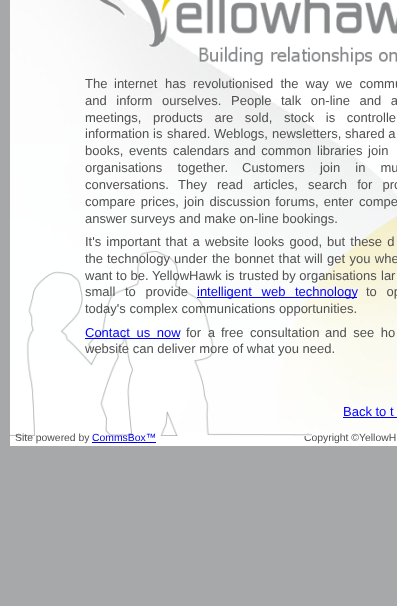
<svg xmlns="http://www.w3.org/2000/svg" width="397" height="606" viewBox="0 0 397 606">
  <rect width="100%" height="100%" fill="#a7a8aa"/>
  <rect x="10" y="433" width="387" height="13" fill="#ffffff"/>
  <image x="10" y="0" width="387" height="433" href="img1.png"/>
  <image x="98" y="0" width="299" height="66" href="img2.png"/>
  <text x="85" y="88" font-family="Liberation Sans" font-size="13" fill="#505050">The</text>
  <text x="114" y="88" font-family="Liberation Sans" font-size="13" fill="#505050">internet</text>
  <text x="165" y="88" word-spacing="3.5" font-family="Liberation Sans" font-size="13" fill="#505050">has revolutionised the way we commu</text>
  <text x="85" y="105" word-spacing="6" font-family="Liberation Sans" font-size="13" fill="#505050">and inform ourselves.</text>
  <text x="231" y="105" font-family="Liberation Sans" font-size="13" fill="#505050">People</text>
  <text x="281" y="105" word-spacing="6" font-family="Liberation Sans" font-size="13" fill="#505050">talk on-line and a</text>
  <text x="85" y="122" word-spacing="8" font-family="Liberation Sans" font-size="13" fill="#505050">meetings, products are sold, stock is controlle</text>
  <text x="85" y="138" font-family="Liberation Sans" font-size="13" fill="#505050">information</text>
  <text x="153" y="138" word-spacing="1" font-family="Liberation Sans" font-size="13" fill="#505050">is shared.</text>
  <text x="214" y="138" font-family="Liberation Sans" font-size="13" fill="#505050">Weblogs,</text>
  <text x="272" y="138" font-family="Liberation Sans" font-size="13" fill="#505050">newsletters,</text>
  <text x="345" y="138" font-family="Liberation Sans" font-size="13" fill="#505050">shared a</text>
  <text x="85" y="155" font-family="Liberation Sans" font-size="13" fill="#505050">books,</text>
  <text x="129" y="155" word-spacing="2" font-family="Liberation Sans" font-size="13" fill="#505050">events calendars</text>
  <text x="234" y="155" word-spacing="2" font-family="Liberation Sans" font-size="13" fill="#505050">and common</text>
  <text x="317" y="155" word-spacing="2" font-family="Liberation Sans" font-size="13" fill="#505050">libraries join</text>
  <text x="85" y="172" word-spacing="11.5" font-family="Liberation Sans" font-size="13" fill="#505050">organisations together.</text>
  <text x="242" y="172" word-spacing="11.5" font-family="Liberation Sans" font-size="13" fill="#505050">Customers join in mu</text>
  <text x="85" y="189" font-family="Liberation Sans" font-size="13" fill="#505050">conversations.</text>
  <text x="178" y="189" word-spacing="6.5" font-family="Liberation Sans" font-size="13" fill="#505050">They read articles, search for pro</text>
  <text x="85" y="206" word-spacing="1.5" font-family="Liberation Sans" font-size="13" fill="#505050">compare prices, join discussion forums, enter</text>
  <text x="359" y="206" font-family="Liberation Sans" font-size="13" fill="#505050">compe</text>
  <text x="85" y="223" font-family="Liberation Sans" font-size="13" fill="#505050">answer surveys and make on-line bookings.</text>
  <text x="85" y="246" word-spacing="1.5" font-family="Liberation Sans" font-size="13" fill="#505050">It's important that a</text>
  <text x="205" y="246" font-family="Liberation Sans" font-size="13" fill="#505050">website</text>
  <text x="254" y="246" word-spacing="1.5" font-family="Liberation Sans" font-size="13" fill="#505050">looks good, but these d</text>
  <text x="304" y="441" font-family="Liberation Sans" font-size="10.4" fill="#505050">Copyright ©YellowH</text>
  <image x="10" y="251" width="302" height="185" href="img3.png"/>
  <text x="85" y="263" font-family="Liberation Sans" font-size="13" fill="#505050">the</text>
  <text x="107" y="263" font-family="Liberation Sans" font-size="13" fill="#505050">technology</text>
  <text x="174" y="263" font-family="Liberation Sans" font-size="13" fill="#505050">under</text>
  <text x="212" y="263" word-spacing="0.75" font-family="Liberation Sans" font-size="13" fill="#505050">the bonnet that will get you whe</text>
  <text x="85" y="280" font-family="Liberation Sans" font-size="13" fill="#505050">want to be.</text>
  <text x="152" y="280" font-family="Liberation Sans" font-size="13" fill="#505050">YellowHawk is</text>
  <text x="239" y="280" font-family="Liberation Sans" font-size="13" fill="#505050">trusted</text>
  <text x="282" y="280" font-family="Liberation Sans" font-size="13" fill="#505050">by organisations</text>
  <text x="381" y="280" font-family="Liberation Sans" font-size="13" fill="#505050">lar</text>
  <text x="85" y="296" word-spacing="6" font-family="Liberation Sans" font-size="13" fill="#505050">small to provide</text>
  <rect x="197" y="297" width="160" height="1" fill="#0000ff"/>
  <text x="197" y="296" word-spacing="6" font-family="Liberation Sans" font-size="13" fill="#0000ff">intelligent web technology</text>
  <text x="366" y="296" word-spacing="6" font-family="Liberation Sans" font-size="13" fill="#505050">to op</text>
  <text x="85" y="313" font-family="Liberation Sans" font-size="13" fill="#505050">today's complex communications opportunities.</text>
  <text x="85" y="337" word-spacing="3" font-family="Liberation Sans" font-size="13" fill="#0000ff">Contact us now</text>
  <rect x="85" y="338" width="95" height="1" fill="#0000ff"/>
  <text x="186" y="337" word-spacing="3" font-family="Liberation Sans" font-size="13" fill="#505050">for a</text>
  <text x="221" y="337" word-spacing="3" font-family="Liberation Sans" font-size="13" fill="#505050">free consultation</text>
  <text x="325" y="337" word-spacing="3" font-family="Liberation Sans" font-size="13" fill="#505050">and see ho</text>
  <text x="85" y="353" font-family="Liberation Sans" font-size="13" fill="#505050">website can deliver more of what you need.</text>
  <text x="343" y="416" font-family="Liberation Sans" font-size="13" fill="#0000ff">Back to t</text>
  <rect x="343" y="417" width="54" height="1" fill="#0000ff"/>
  <text x="15" y="441" font-family="Liberation Sans" font-size="10.4" fill="#505050">Site powered by</text>
  <text x="92" y="441" font-family="Liberation Sans" font-size="10.4" fill="#0000ee">CommsBox™</text>
  <rect x="92" y="442" width="64" height="1" fill="#0000ee"/>
</svg>
